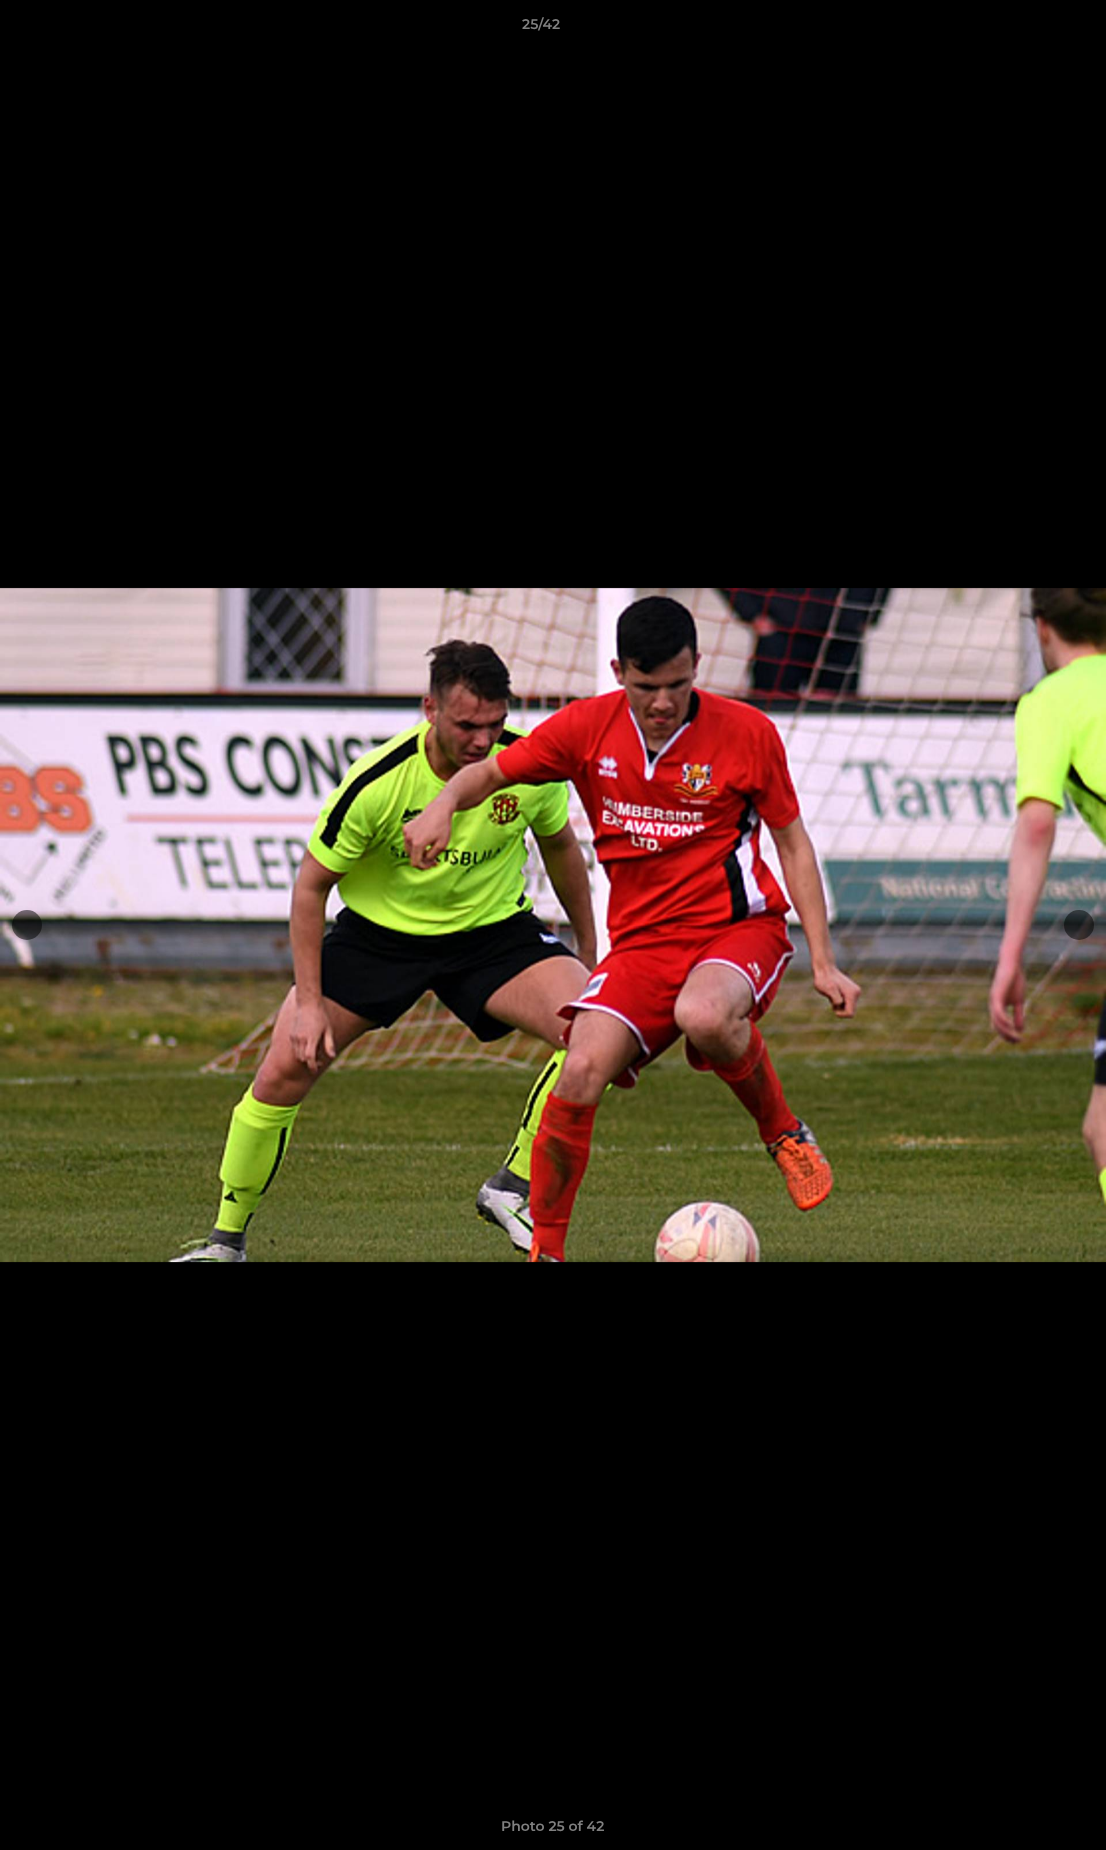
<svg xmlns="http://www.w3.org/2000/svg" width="1106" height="1850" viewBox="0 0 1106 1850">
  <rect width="100%" height="100%" fill="#000000"/>
  <text x="522" y="29" font-family="Montserrat" font-size="14" font-weight="600" fill="#808080">25/42</text>
  <image x="0" y="587" width="1106" height="676" href="img1.png"/>
  <circle cx="27" cy="925" r="15" fill="#000000" fill-opacity="0.5"/>
  <circle cx="1079" cy="925" r="15" fill="#000000" fill-opacity="0.5"/>
  <text x="501" y="1831" font-family="Montserrat" font-size="14" font-weight="600" fill="#808080">Photo 25 of 42</text>
</svg>
